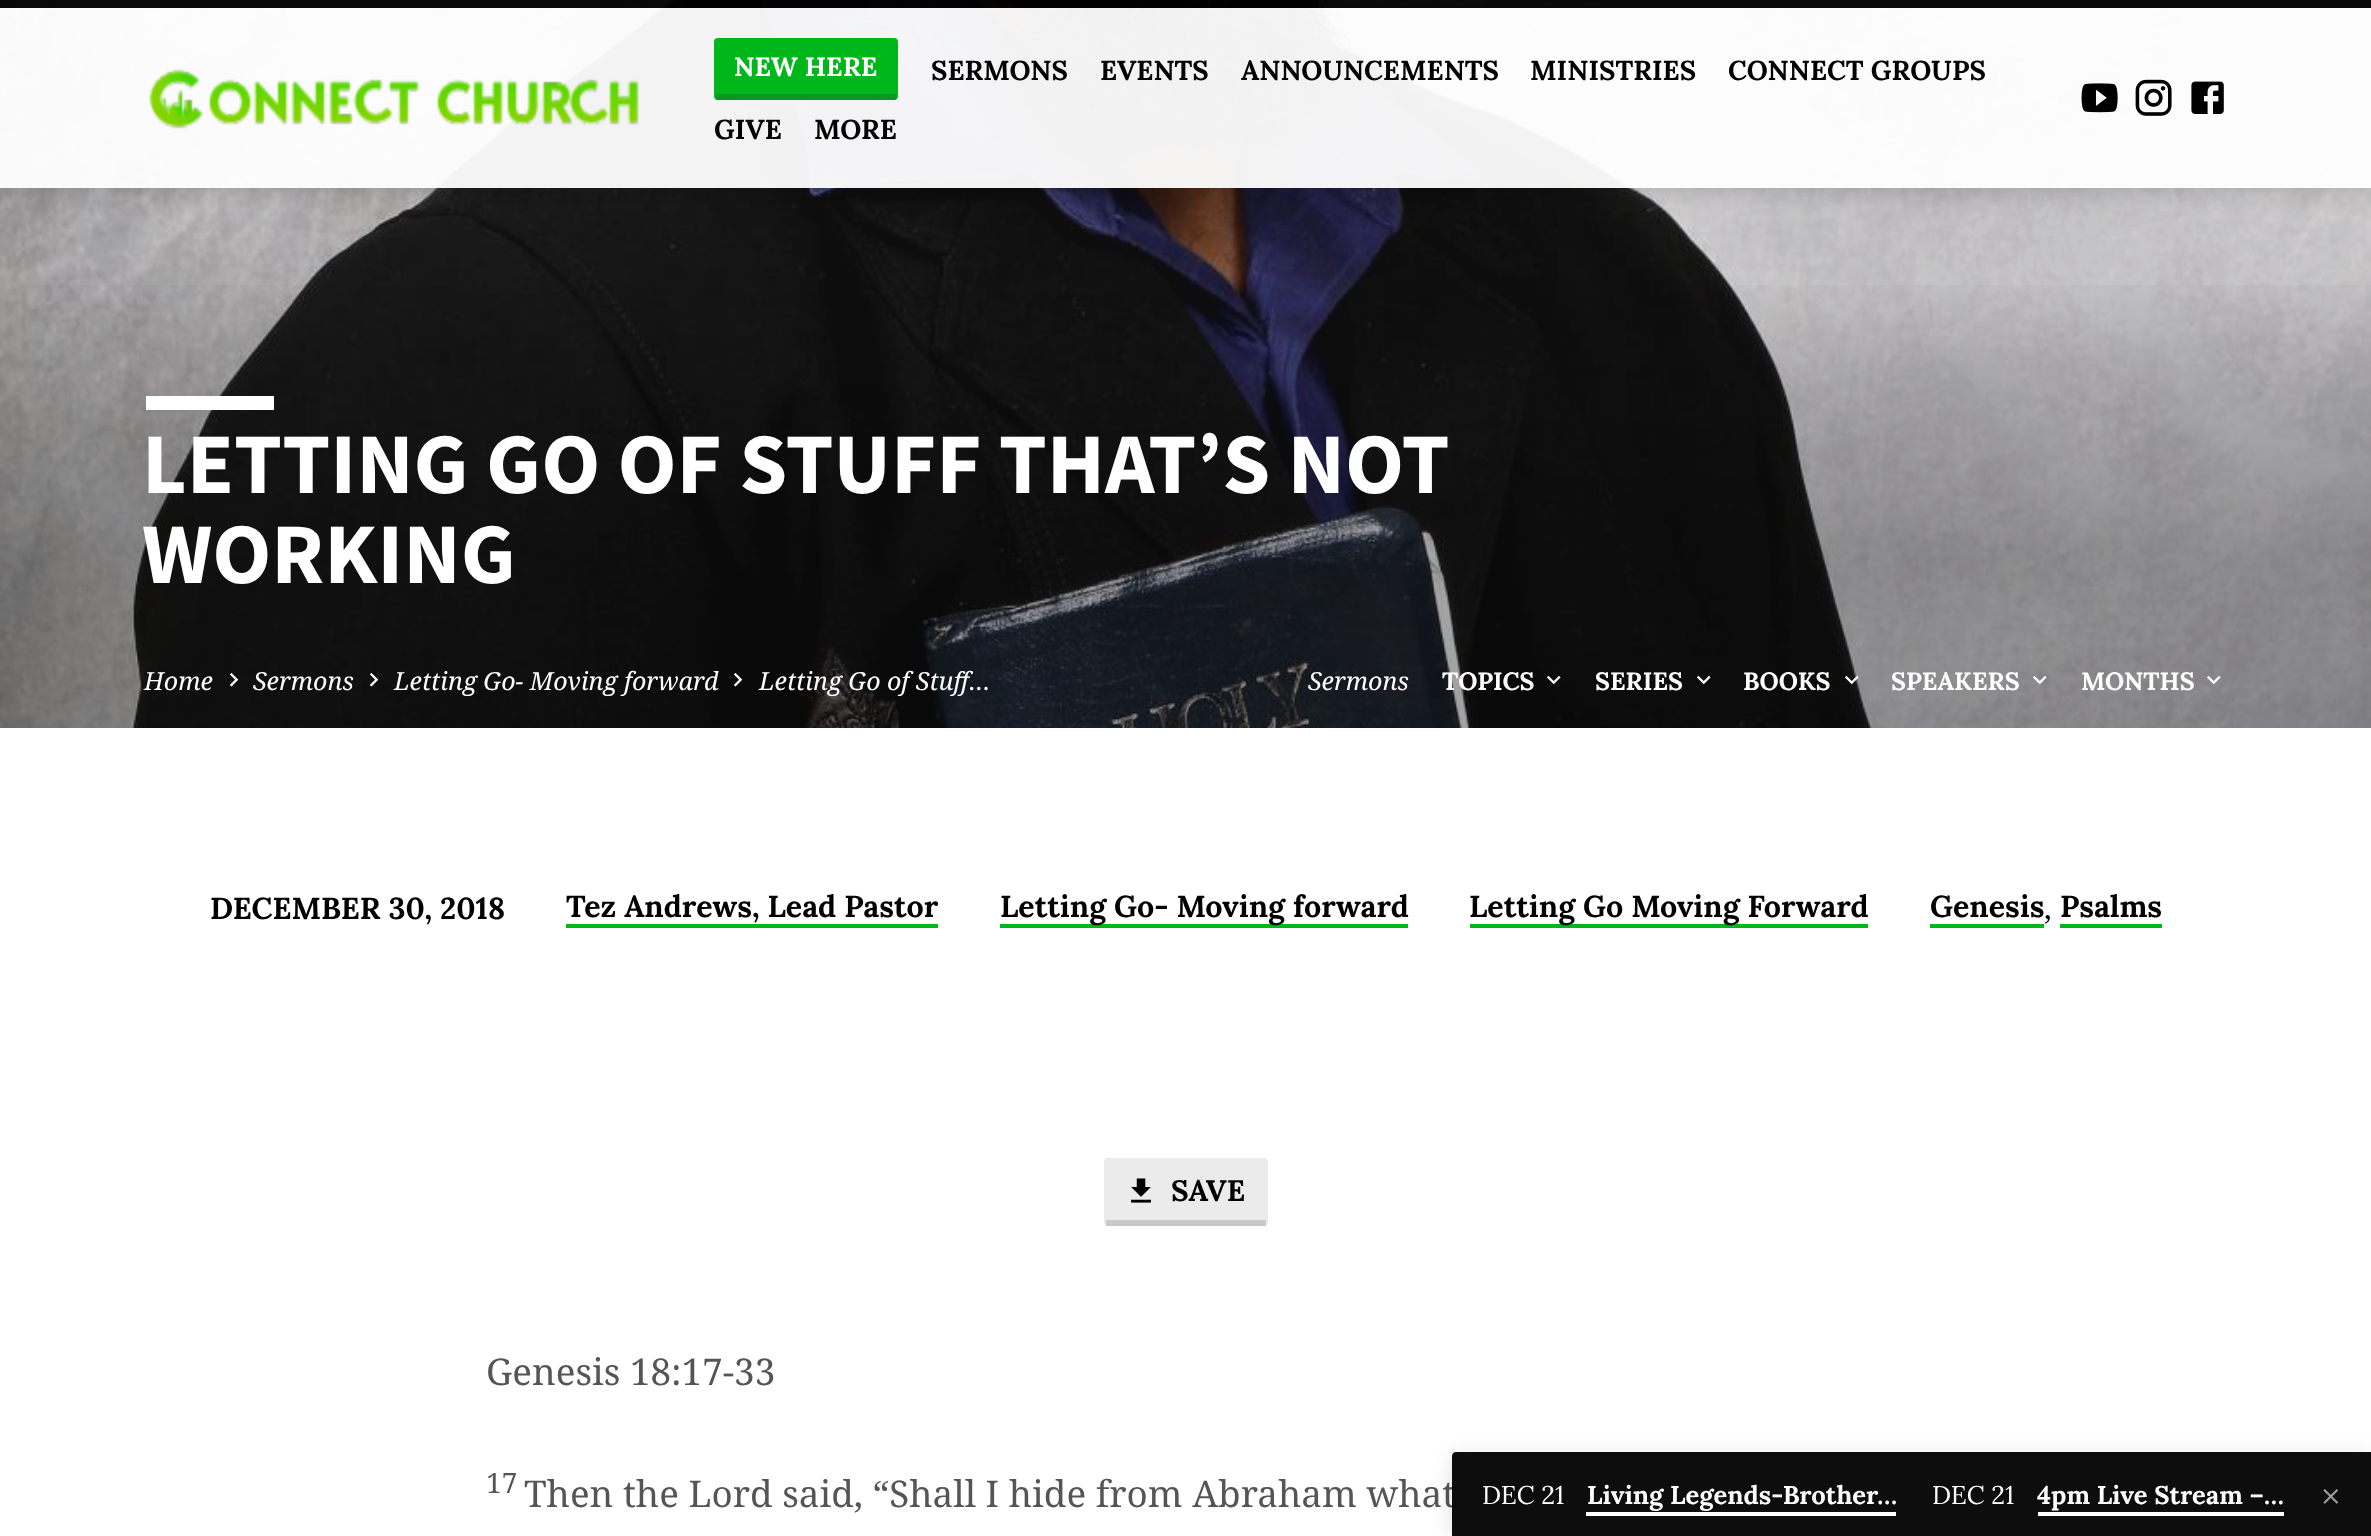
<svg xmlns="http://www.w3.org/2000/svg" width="2371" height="1536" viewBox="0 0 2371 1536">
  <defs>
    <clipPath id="clip1"><path d="M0 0H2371V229H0ZM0 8H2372V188H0Z" clip-rule="evenodd"/></clipPath>
    <filter id="blur1" x="-50%" y="-200%" width="200%" height="500%"><feGaussianBlur stdDeviation="12"/></filter>
    <linearGradient id="g1" gradientUnits="userSpaceOnUse" x1="1186" y1="0" x2="1186" y2="728"><stop offset="0" stop-color="#000000" stop-opacity="0"/><stop offset="0.36" stop-color="#000000" stop-opacity="0"/><stop offset="0.76" stop-color="#000000" stop-opacity="0.28"/><stop offset="1" stop-color="#000000" stop-opacity="0.28"/></linearGradient>
    <clipPath id="clip2"><path d="M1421 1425H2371V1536H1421ZM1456 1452H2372V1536H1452V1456C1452 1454 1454 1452 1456 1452Z" clip-rule="evenodd"/></clipPath>
    <filter id="blur2" x="-50%" y="-200%" width="200%" height="500%"><feGaussianBlur stdDeviation="10"/></filter>
  </defs>
  <rect width="100%" height="100%" fill="#ffffff"/>
  <image x="0" y="0" width="2371" height="728" href="img5.png"/>
  <rect x="0" y="0" width="2371" height="8" fill="#000000" fill-opacity="0.95"/>
  <rect x="0" y="8" width="2371" height="180" fill="#ffffff" fill-opacity="0.95"/>
  <g clip-path="url(#clip1)">
    <rect x="0" y="12" width="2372" height="180" fill="#000000" fill-opacity="0.14" filter="url(#blur1)"/>
  </g>
  <image x="149" y="69" width="490" height="60" href="img1.png"/>
  <rect x="714" y="38" width="184" height="62" rx="4" fill="#00b71b"/>
  <rect x="716" y="94" width="180" height="6" fill="#323232" fill-opacity="0.25"/>
  <text x="734" y="76" font-family="Lora" font-size="26.5" font-weight="bold" fill="#ffffff">NEW HERE</text>
  <text x="931" y="80" font-family="Lora" font-size="27.4" font-weight="bold" fill="#000000">SERMONS</text>
  <text x="1100" y="80" font-family="Lora" font-size="27.4" font-weight="bold" fill="#000000">EVENTS</text>
  <text x="1241" y="80" font-family="Lora" font-size="27.4" font-weight="bold" fill="#000000">ANNOUNCEMENTS</text>
  <text x="1530" y="80" font-family="Lora" font-size="27.4" font-weight="bold" fill="#000000">MINISTRIES</text>
  <text x="1728" y="80" font-family="Lora" font-size="27.4" font-weight="bold" fill="#000000">CONNECT GROUPS</text>
  <text x="714" y="139" font-family="Lora" font-size="27.4" font-weight="bold" fill="#000000">GIVE</text>
  <text x="814" y="139" font-family="Lora" font-size="27.4" font-weight="bold" fill="#000000">MORE</text>
  <image x="2081" y="83" width="37" height="30" href="img2.png"/>
  <image x="2135" y="79" width="37" height="37" href="img3.png"/>
  <image x="2191" y="81" width="33" height="33" href="img4.png"/>
  <rect x="0" y="285" width="2371" height="443" fill="url(#g1)"/>
  <rect x="146" y="396" width="128" height="14" fill="#ffffff"/>
  <text x="142" y="493" font-family="Source Sans Pro" font-size="86.4" font-weight="bold" fill="#ffffff">LETTING GO OF STUFF THAT’S NOT</text>
  <text x="142" y="583" font-family="Source Sans Pro" font-size="86.4" font-weight="bold" fill="#ffffff">WORKING</text>
  <text x="144" y="690" font-family="Noto Serif" font-size="25" font-style="italic" fill="#ffffff">Home</text>
  <image x="229" y="672" width="10" height="15" href="img6.png"/>
  <text x="253" y="690" font-family="Noto Serif" font-size="25" font-style="italic" fill="#ffffff">Sermons</text>
  <image x="369" y="672" width="10" height="15" href="img7.png"/>
  <text x="394" y="690" font-family="Noto Serif" font-size="25" font-style="italic" fill="#ffffff">Letting Go- Moving forward</text>
  <image x="733" y="672" width="10" height="15" href="img8.png"/>
  <text x="759" y="690" font-family="Noto Serif" font-size="25" font-style="italic" fill="#ffffff">Letting Go of Stuff…</text>
  <text x="1308" y="690" font-family="Noto Serif" font-size="25" font-style="italic" fill="#ffffff">Sermons</text>
  <text x="1442" y="690" font-family="Lora" font-size="25" font-weight="bold" fill="#ffffff">TOPICS</text>
  <image x="1547" y="675" width="14" height="10" href="img9.png"/>
  <text x="1595" y="690" font-family="Lora" font-size="25" font-weight="bold" fill="#ffffff">SERIES</text>
  <image x="1697" y="675" width="14" height="10" href="img10.png"/>
  <text x="1743" y="690" font-family="Lora" font-size="25" font-weight="bold" fill="#ffffff">BOOKS</text>
  <image x="1845" y="675" width="14" height="10" href="img11.png"/>
  <text x="1891" y="690" font-family="Lora" font-size="25" font-weight="bold" fill="#ffffff">SPEAKERS</text>
  <image x="2033" y="675" width="14" height="10" href="img12.png"/>
  <text x="2081" y="690" font-family="Lora" font-size="25" font-weight="bold" fill="#ffffff">MONTHS</text>
  <image x="2207" y="675" width="14" height="10" href="img13.png"/>
  <text x="210" y="919" font-family="Lora" font-size="30.4" font-weight="bold" fill="#000000">DECEMBER 30, 2018</text>
  <text x="566" y="917" font-family="Lora" font-size="30.4" font-weight="bold" fill="#000000">Tez Andrews, Lead Pastor</text>
  <rect x="566" y="924" width="372" height="4" fill="#00b71b"/>
  <rect x="1000" y="924" width="408" height="4" fill="#00b71b"/>
  <text x="1000" y="917" font-family="Lora" font-size="30.4" font-weight="bold" fill="#000000">Letting Go- Moving forward</text>
  <rect x="1470" y="924" width="398" height="4" fill="#00b71b"/>
  <text x="1469" y="917" font-family="Lora" font-size="30.4" font-weight="bold" fill="#000000">Letting Go Moving Forward</text>
  <text x="1930" y="917" font-family="Lora" font-size="30.4" font-weight="bold" fill="#000000">Genesis</text>
  <rect x="1930" y="924" width="114" height="4" fill="#00b71b"/>
  <text x="2060" y="917" font-family="Lora" font-size="30.4" font-weight="bold" fill="#000000">Psalms</text>
  <rect x="2060" y="924" width="102" height="4" fill="#00b71b"/>
  <text x="2044" y="919" font-family="Noto Serif" font-size="30.4" fill="#000000">,</text>
  <rect x="1104" y="1158" width="164" height="68" rx="4" fill="#ebebeb"/>
  <rect x="1106" y="1220" width="160" height="6" fill="#323232" fill-opacity="0.18"/>
  <image x="1131" y="1178" width="20" height="25" href="img14.png"/>
  <text x="1171" y="1201" font-family="Lora" font-size="29.5" font-weight="bold" fill="#000000">SAVE</text>
  <text x="486" y="1385" font-family="Noto Serif" font-size="36.8" fill="#555555">Genesis 18:17-33</text>
  <text x="486" y="1493" font-family="Noto Serif" font-size="28" fill="#555555">17</text>
  <text x="524" y="1507" font-family="Noto Serif" font-size="36.8" fill="#555555">Then the Lord said, “Shall I hide from Abraham what</text>
  <g clip-path="url(#clip2)">
    <rect x="1452" y="1456" width="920" height="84" rx="4" fill="#000000" fill-opacity="0.12" filter="url(#blur2)"/>
  </g>
  <path d="M1456 1452H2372V1536H1452V1456C1452 1454 1454 1452 1456 1452Z" fill="#000000" fill-opacity="0.95"/>
  <rect x="1452" y="1452" width="3" height="3" fill="#000000" fill-opacity="0.07"/>
  <text x="1482" y="1504" font-family="Lora" font-size="25.6" fill="#ffffff">DEC 21</text>
  <text x="1587" y="1504" font-family="Lora" font-size="25.6" font-weight="bold" fill="#ffffff">Living Legends-Brother…</text>
  <rect x="1586" y="1512" width="310" height="4" fill="#ffffff"/>
  <text x="1932" y="1504" font-family="Lora" font-size="25.6" fill="#ffffff">DEC 21</text>
  <text x="2037" y="1504" font-family="Lora" font-size="25.6" font-weight="bold" fill="#ffffff">4pm Live Stream –…</text>
  <rect x="2038" y="1512" width="246" height="4" fill="#ffffff"/>
  <image x="2323" y="1489" width="16" height="15" href="img15.png"/>
</svg>
